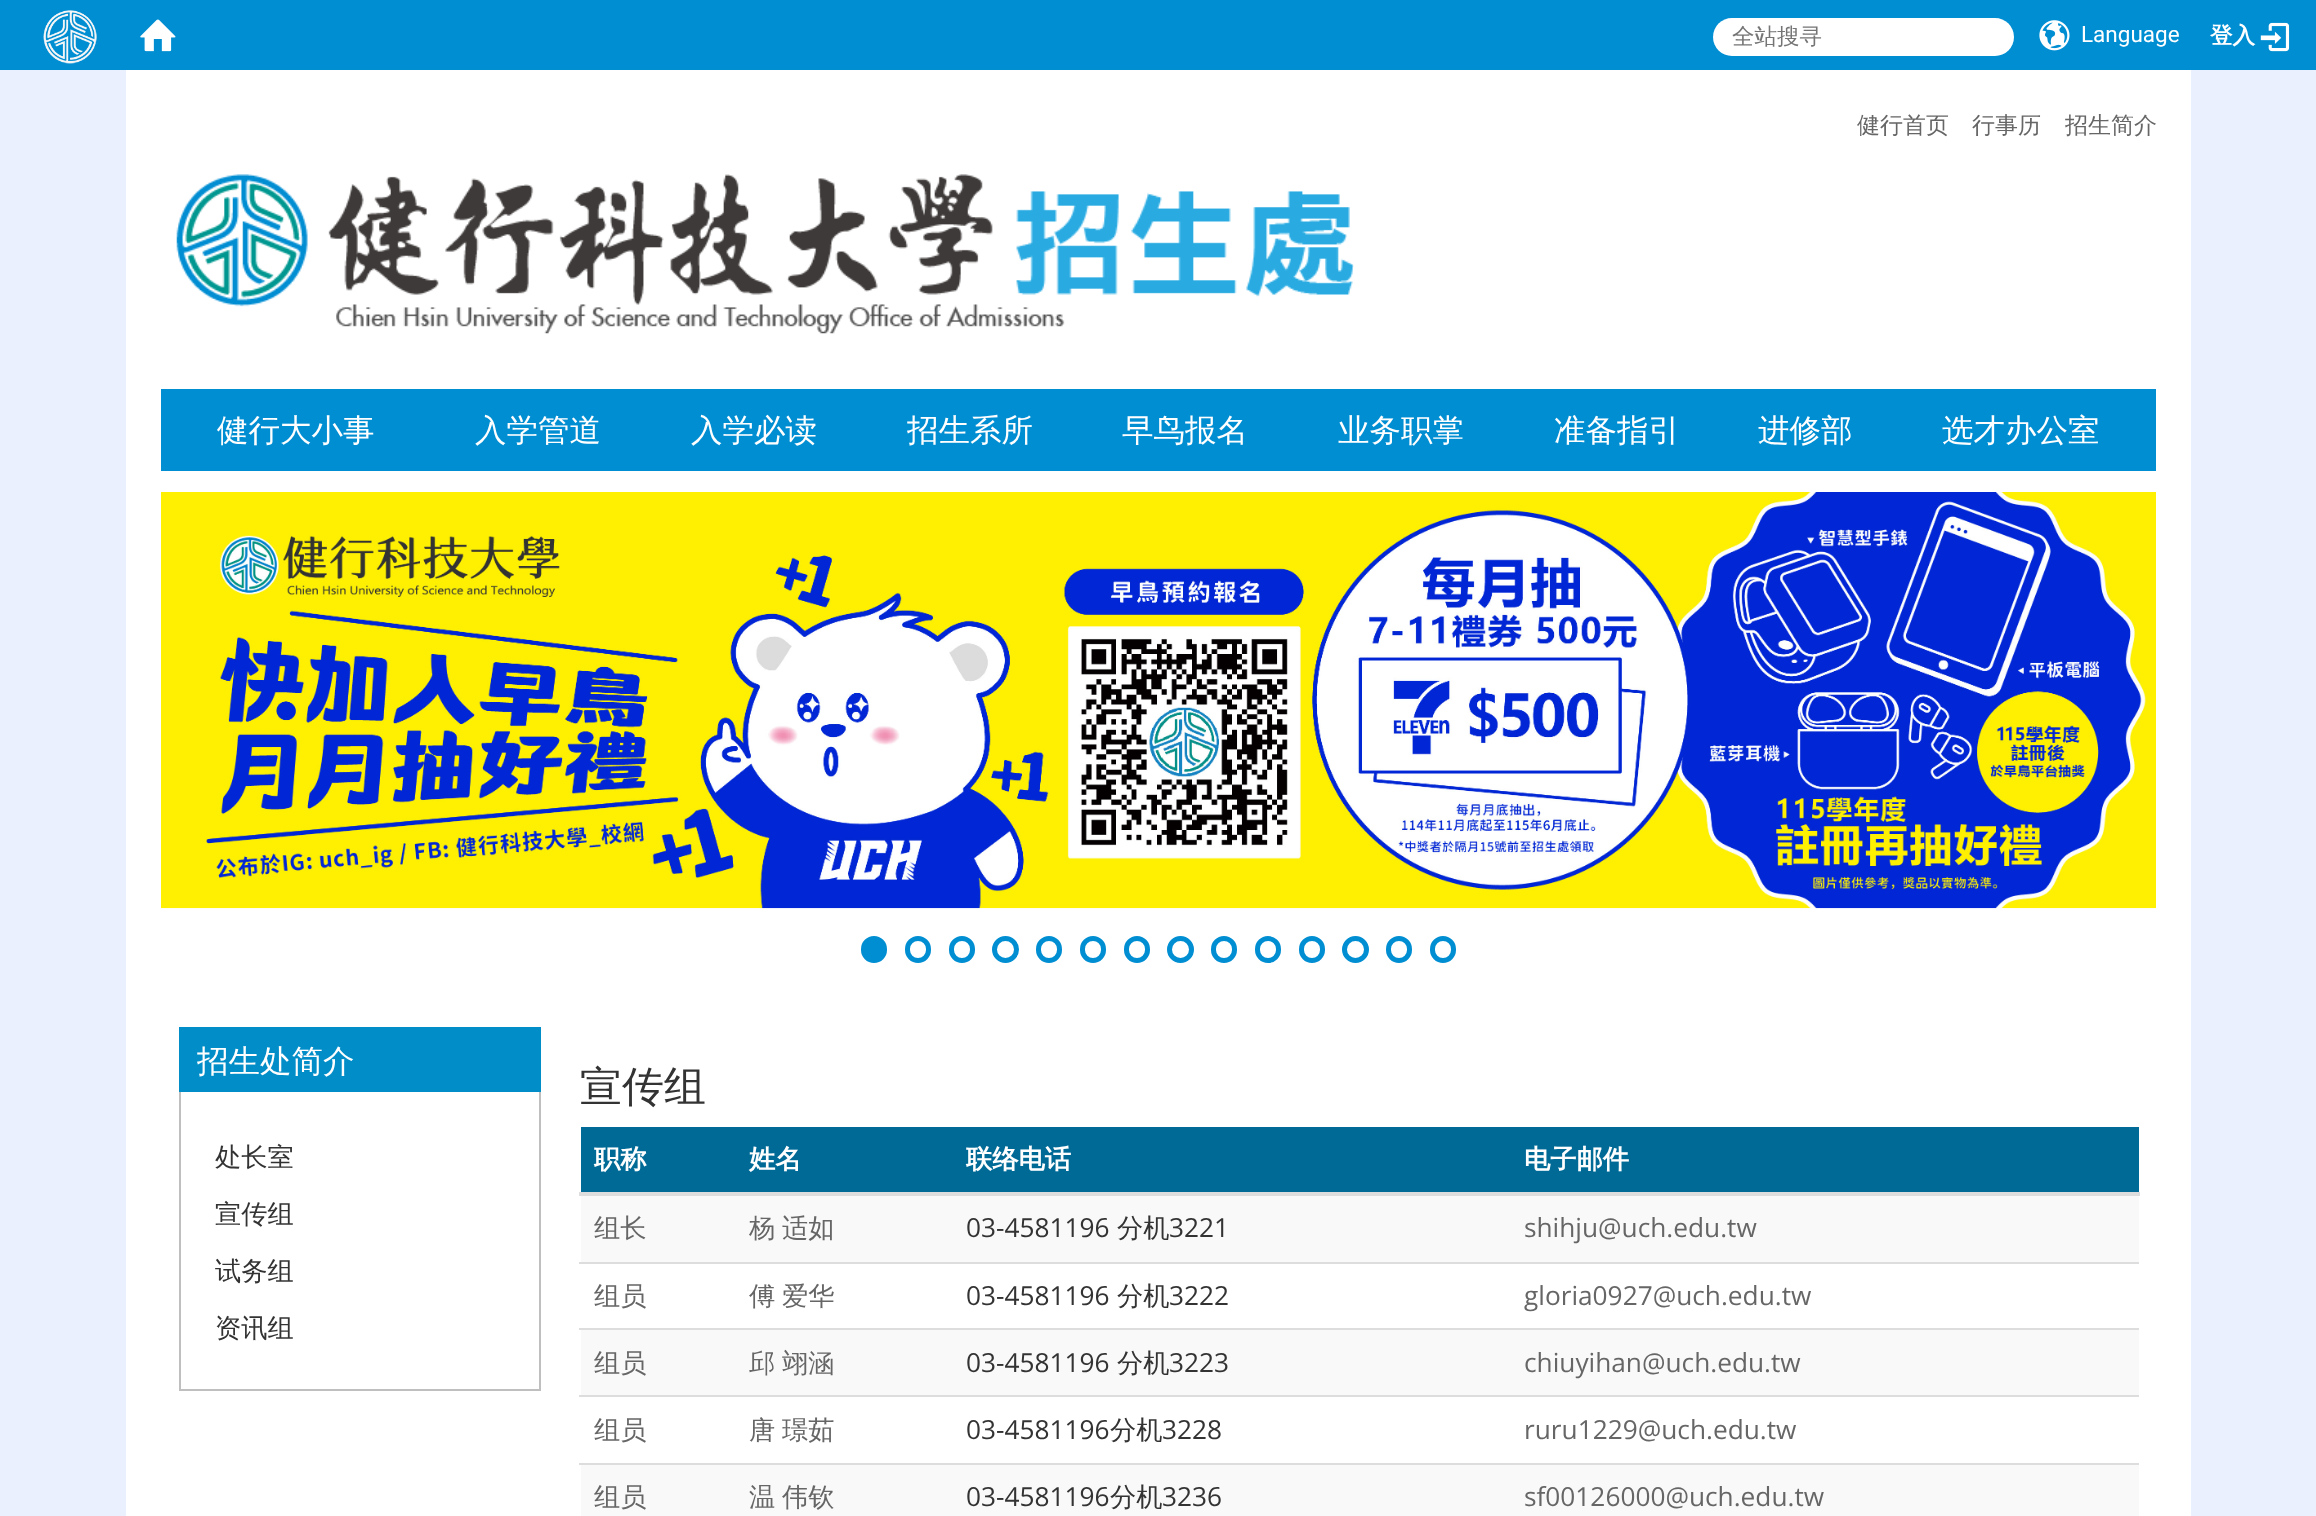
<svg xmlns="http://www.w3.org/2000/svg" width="2316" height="1516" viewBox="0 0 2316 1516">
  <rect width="100%" height="100%" fill="#ebf0ff"/>
  <rect x="0" y="0" width="2316" height="70" fill="#008ed3"/>
  <image x="43" y="10" width="54" height="54" href="img1.png"/>
  <image x="140" y="19" width="36" height="33" href="img2.png"/>
  <rect x="1713" y="18" width="301" height="38" rx="19" fill="#ffffff"/>
  <text x="1732" y="44" font-family="WenQuanYi Zen Hei" font-size="22.5" font-weight="500" fill="#757575">全站搜寻</text>
  <image x="2039" y="20" width="31" height="31" href="img3.png"/>
  <text x="2081" y="42" font-family="Roboto" font-size="22.5" fill="#ffffff">Language</text>
  <text x="2210" y="43" font-family="WenQuanYi Zen Hei" font-size="22.5" font-weight="bold" fill="#ffffff">登入</text>
  <image x="2260" y="22" width="30" height="30" href="img4.png"/>
  <rect x="126" y="70" width="2065" height="319" fill="#ffffff"/>
  <text x="1857" y="133" font-family="WenQuanYi Zen Hei" font-size="23" font-weight="500" fill="#666666">健行首页</text>
  <text x="1972" y="133" font-family="WenQuanYi Zen Hei" font-size="23" font-weight="500" fill="#666666">行事历</text>
  <text x="2065" y="133" font-family="WenQuanYi Zen Hei" font-size="23" font-weight="500" fill="#666666">招生简介</text>
  <image x="176" y="174" width="1178" height="160" href="img5.png"/>
  <rect x="126" y="389" width="2065" height="1127" fill="#ffffff"/>
  <image x="161" y="492" width="1995" height="417" href="img6.png"/>
  <rect x="863.5" y="938.5" width="21" height="22" rx="10.5" fill="#008ed3" stroke="#008ed3" stroke-width="5"/>
  <rect x="907.5" y="938.5" width="21" height="22" rx="10.5" fill="none" stroke="#008ed3" stroke-width="5"/>
  <rect x="951.5" y="938.5" width="21" height="22" rx="10.5" fill="none" stroke="#008ed3" stroke-width="5"/>
  <circle cx="1005.5" cy="949.5" r="11" fill="none" stroke="#008ed3" stroke-width="5"/>
  <rect x="1038.5" y="938.5" width="21" height="22" rx="10.5" fill="none" stroke="#008ed3" stroke-width="5"/>
  <rect x="1082.5" y="938.5" width="21" height="22" rx="10.5" fill="none" stroke="#008ed3" stroke-width="5"/>
  <rect x="1126.5" y="938.5" width="21" height="22" rx="10.5" fill="none" stroke="#008ed3" stroke-width="5"/>
  <circle cx="1180.5" cy="949.5" r="11" fill="none" stroke="#008ed3" stroke-width="5"/>
  <rect x="1213.5" y="938.5" width="21" height="22" rx="10.5" fill="none" stroke="#008ed3" stroke-width="5"/>
  <rect x="1257.5" y="938.5" width="21" height="22" rx="10.5" fill="none" stroke="#008ed3" stroke-width="5"/>
  <rect x="1301.5" y="938.5" width="21" height="22" rx="10.5" fill="none" stroke="#008ed3" stroke-width="5"/>
  <circle cx="1355.5" cy="949.5" r="11" fill="none" stroke="#008ed3" stroke-width="5"/>
  <rect x="1388.5" y="938.5" width="21" height="22" rx="10.5" fill="none" stroke="#008ed3" stroke-width="5"/>
  <rect x="1432.5" y="938.5" width="21" height="22" rx="10.5" fill="none" stroke="#008ed3" stroke-width="5"/>
  <rect x="161" y="389" width="1995" height="82" fill="#008ed3"/>
  <text x="217" y="441" font-family="WenQuanYi Zen Hei" font-size="31.5" font-weight="500" fill="#ffffff">健行大小事</text>
  <text x="475" y="441" font-family="WenQuanYi Zen Hei" font-size="31.5" font-weight="500" fill="#ffffff">入学管道</text>
  <text x="691" y="441" font-family="WenQuanYi Zen Hei" font-size="31.5" font-weight="500" fill="#ffffff">入学必读</text>
  <text x="907" y="441" font-family="WenQuanYi Zen Hei" font-size="31.5" font-weight="500" fill="#ffffff">招生系所</text>
  <text x="1122" y="441" font-family="WenQuanYi Zen Hei" font-size="31.5" font-weight="500" fill="#ffffff">早鸟报名</text>
  <text x="1338" y="441" font-family="WenQuanYi Zen Hei" font-size="31.5" font-weight="500" fill="#ffffff">业务职掌</text>
  <text x="1554" y="441" font-family="WenQuanYi Zen Hei" font-size="31.5" font-weight="500" fill="#ffffff">准备指引</text>
  <text x="1758" y="441" font-family="WenQuanYi Zen Hei" font-size="31.5" font-weight="500" fill="#ffffff">进修部</text>
  <text x="1942" y="441" font-family="WenQuanYi Zen Hei" font-size="31.5" font-weight="500" fill="#ffffff">选才办公室</text>
  <rect x="180" y="1091" width="360" height="299" fill="none" stroke="#bfbfbf" stroke-width="2"/>
  <rect x="179" y="1027" width="362" height="65" fill="#008dc8"/>
  <text x="197" y="1072" font-family="WenQuanYi Zen Hei" font-size="31.5" font-weight="500" fill="#ffffff">招生处简介</text>
  <text x="215" y="1166" font-family="WenQuanYi Zen Hei" font-size="26.25" font-weight="500" fill="#333333">处长室</text>
  <text x="215" y="1223" font-family="WenQuanYi Zen Hei" font-size="26.25" font-weight="500" fill="#333333">宣传组</text>
  <text x="215" y="1280" font-family="WenQuanYi Zen Hei" font-size="26.25" font-weight="500" fill="#333333">试务组</text>
  <text x="215" y="1337" font-family="WenQuanYi Zen Hei" font-size="26.25" font-weight="500" fill="#333333">资讯组</text>
  <text x="580" y="1101" font-family="WenQuanYi Zen Hei" font-size="42" font-weight="500" fill="#333333">宣传组</text>
  <rect x="581" y="1127" width="1558" height="65" fill="#006a97"/>
  <text x="594" y="1168" font-family="WenQuanYi Zen Hei" font-size="26.25" font-weight="bold" fill="#ffffff">职称</text>
  <text x="749" y="1168" font-family="WenQuanYi Zen Hei" font-size="26.25" font-weight="bold" fill="#ffffff">姓名</text>
  <text x="966" y="1168" font-family="WenQuanYi Zen Hei" font-size="26.25" font-weight="bold" fill="#ffffff">联络电话</text>
  <rect x="579" y="1192" width="1561" height="4" fill="#dddddd"/>
  <text x="1524" y="1168" font-family="WenQuanYi Zen Hei" font-size="26.25" font-weight="bold" fill="#ffffff">电子邮件</text>
  <rect x="581" y="1196" width="1558" height="66" fill="#f9f9f9"/>
  <text x="594" y="1237" font-family="WenQuanYi Zen Hei" font-size="26.25" font-weight="500" fill="#666666">组长</text>
  <text x="749" y="1237" word-spacing="-1" font-family="WenQuanYi Zen Hei" font-size="26.25" font-weight="500" fill="#666666">杨 适如</text>
  <text x="966" y="1237" font-family="Open Sans" font-size="26.25" fill="#333333">03-4581196</text>
  <text x="1117" y="1237" font-family="WenQuanYi Zen Hei" font-size="26.25" font-weight="500" fill="#333333">分机</text>
  <text x="1169" y="1237" font-family="Open Sans" font-size="26.25" fill="#333333">3221</text>
  <text x="1524" y="1237" font-family="Open Sans" font-size="26.25" fill="#666666">shihju@uch.edu.tw</text>
  <text x="594" y="1305" font-family="WenQuanYi Zen Hei" font-size="26.25" font-weight="500" fill="#666666">组员</text>
  <text x="749" y="1305" word-spacing="-1" font-family="WenQuanYi Zen Hei" font-size="26.25" font-weight="500" fill="#666666">傅 爱华</text>
  <text x="966" y="1305" font-family="Open Sans" font-size="26.25" fill="#333333">03-4581196</text>
  <text x="1117" y="1305" font-family="WenQuanYi Zen Hei" font-size="26.25" font-weight="500" fill="#333333">分机</text>
  <text x="1169" y="1305" font-family="Open Sans" font-size="26.25" fill="#333333">3222</text>
  <rect x="579" y="1262" width="1560" height="2" fill="#dddddd"/>
  <text x="1524" y="1305" font-family="Open Sans" font-size="26.25" fill="#666666">gloria0927@uch.edu.tw</text>
  <rect x="581" y="1330" width="1558" height="65" fill="#f9f9f9"/>
  <text x="594" y="1372" font-family="WenQuanYi Zen Hei" font-size="26.25" font-weight="500" fill="#666666">组员</text>
  <text x="749" y="1372" word-spacing="-1" font-family="WenQuanYi Zen Hei" font-size="26.25" font-weight="500" fill="#666666">邱 翊涵</text>
  <text x="966" y="1372" font-family="Open Sans" font-size="26.25" fill="#333333">03-4581196</text>
  <text x="1117" y="1372" font-family="WenQuanYi Zen Hei" font-size="26.25" font-weight="500" fill="#333333">分机</text>
  <text x="1169" y="1372" font-family="Open Sans" font-size="26.25" fill="#333333">3223</text>
  <rect x="579" y="1328" width="1560" height="2" fill="#dddddd"/>
  <text x="1524" y="1372" font-family="Open Sans" font-size="26.25" fill="#666666">chiuyihan@uch.edu.tw</text>
  <text x="594" y="1439" font-family="WenQuanYi Zen Hei" font-size="26.25" font-weight="500" fill="#666666">组员</text>
  <text x="749" y="1439" word-spacing="-1" font-family="WenQuanYi Zen Hei" font-size="26.25" font-weight="500" fill="#666666">唐 璟茹</text>
  <text x="966" y="1439" font-family="Open Sans" font-size="26.25" fill="#333333">03-4581196</text>
  <text x="1110" y="1439" font-family="WenQuanYi Zen Hei" font-size="26.25" font-weight="500" fill="#333333">分机</text>
  <text x="1162" y="1439" font-family="Open Sans" font-size="26.25" fill="#333333">3228</text>
  <rect x="579" y="1395" width="1560" height="2" fill="#dddddd"/>
  <text x="1524" y="1439" font-family="Open Sans" font-size="26.25" fill="#666666">ruru1229@uch.edu.tw</text>
  <rect x="581" y="1465" width="1558" height="51" fill="#f9f9f9"/>
  <text x="594" y="1506" font-family="WenQuanYi Zen Hei" font-size="26.25" font-weight="500" fill="#666666">组员</text>
  <text x="749" y="1506" word-spacing="-1" font-family="WenQuanYi Zen Hei" font-size="26.25" font-weight="500" fill="#666666">温 伟钦</text>
  <text x="966" y="1506" font-family="Open Sans" font-size="26.25" fill="#333333">03-4581196</text>
  <text x="1110" y="1506" font-family="WenQuanYi Zen Hei" font-size="26.25" font-weight="500" fill="#333333">分机</text>
  <text x="1162" y="1506" font-family="Open Sans" font-size="26.25" fill="#333333">3236</text>
  <rect x="579" y="1463" width="1560" height="2" fill="#dddddd"/>
  <text x="1524" y="1506" font-family="Open Sans" font-size="26.25" fill="#666666">sf00126000@uch.edu.tw</text>
</svg>
